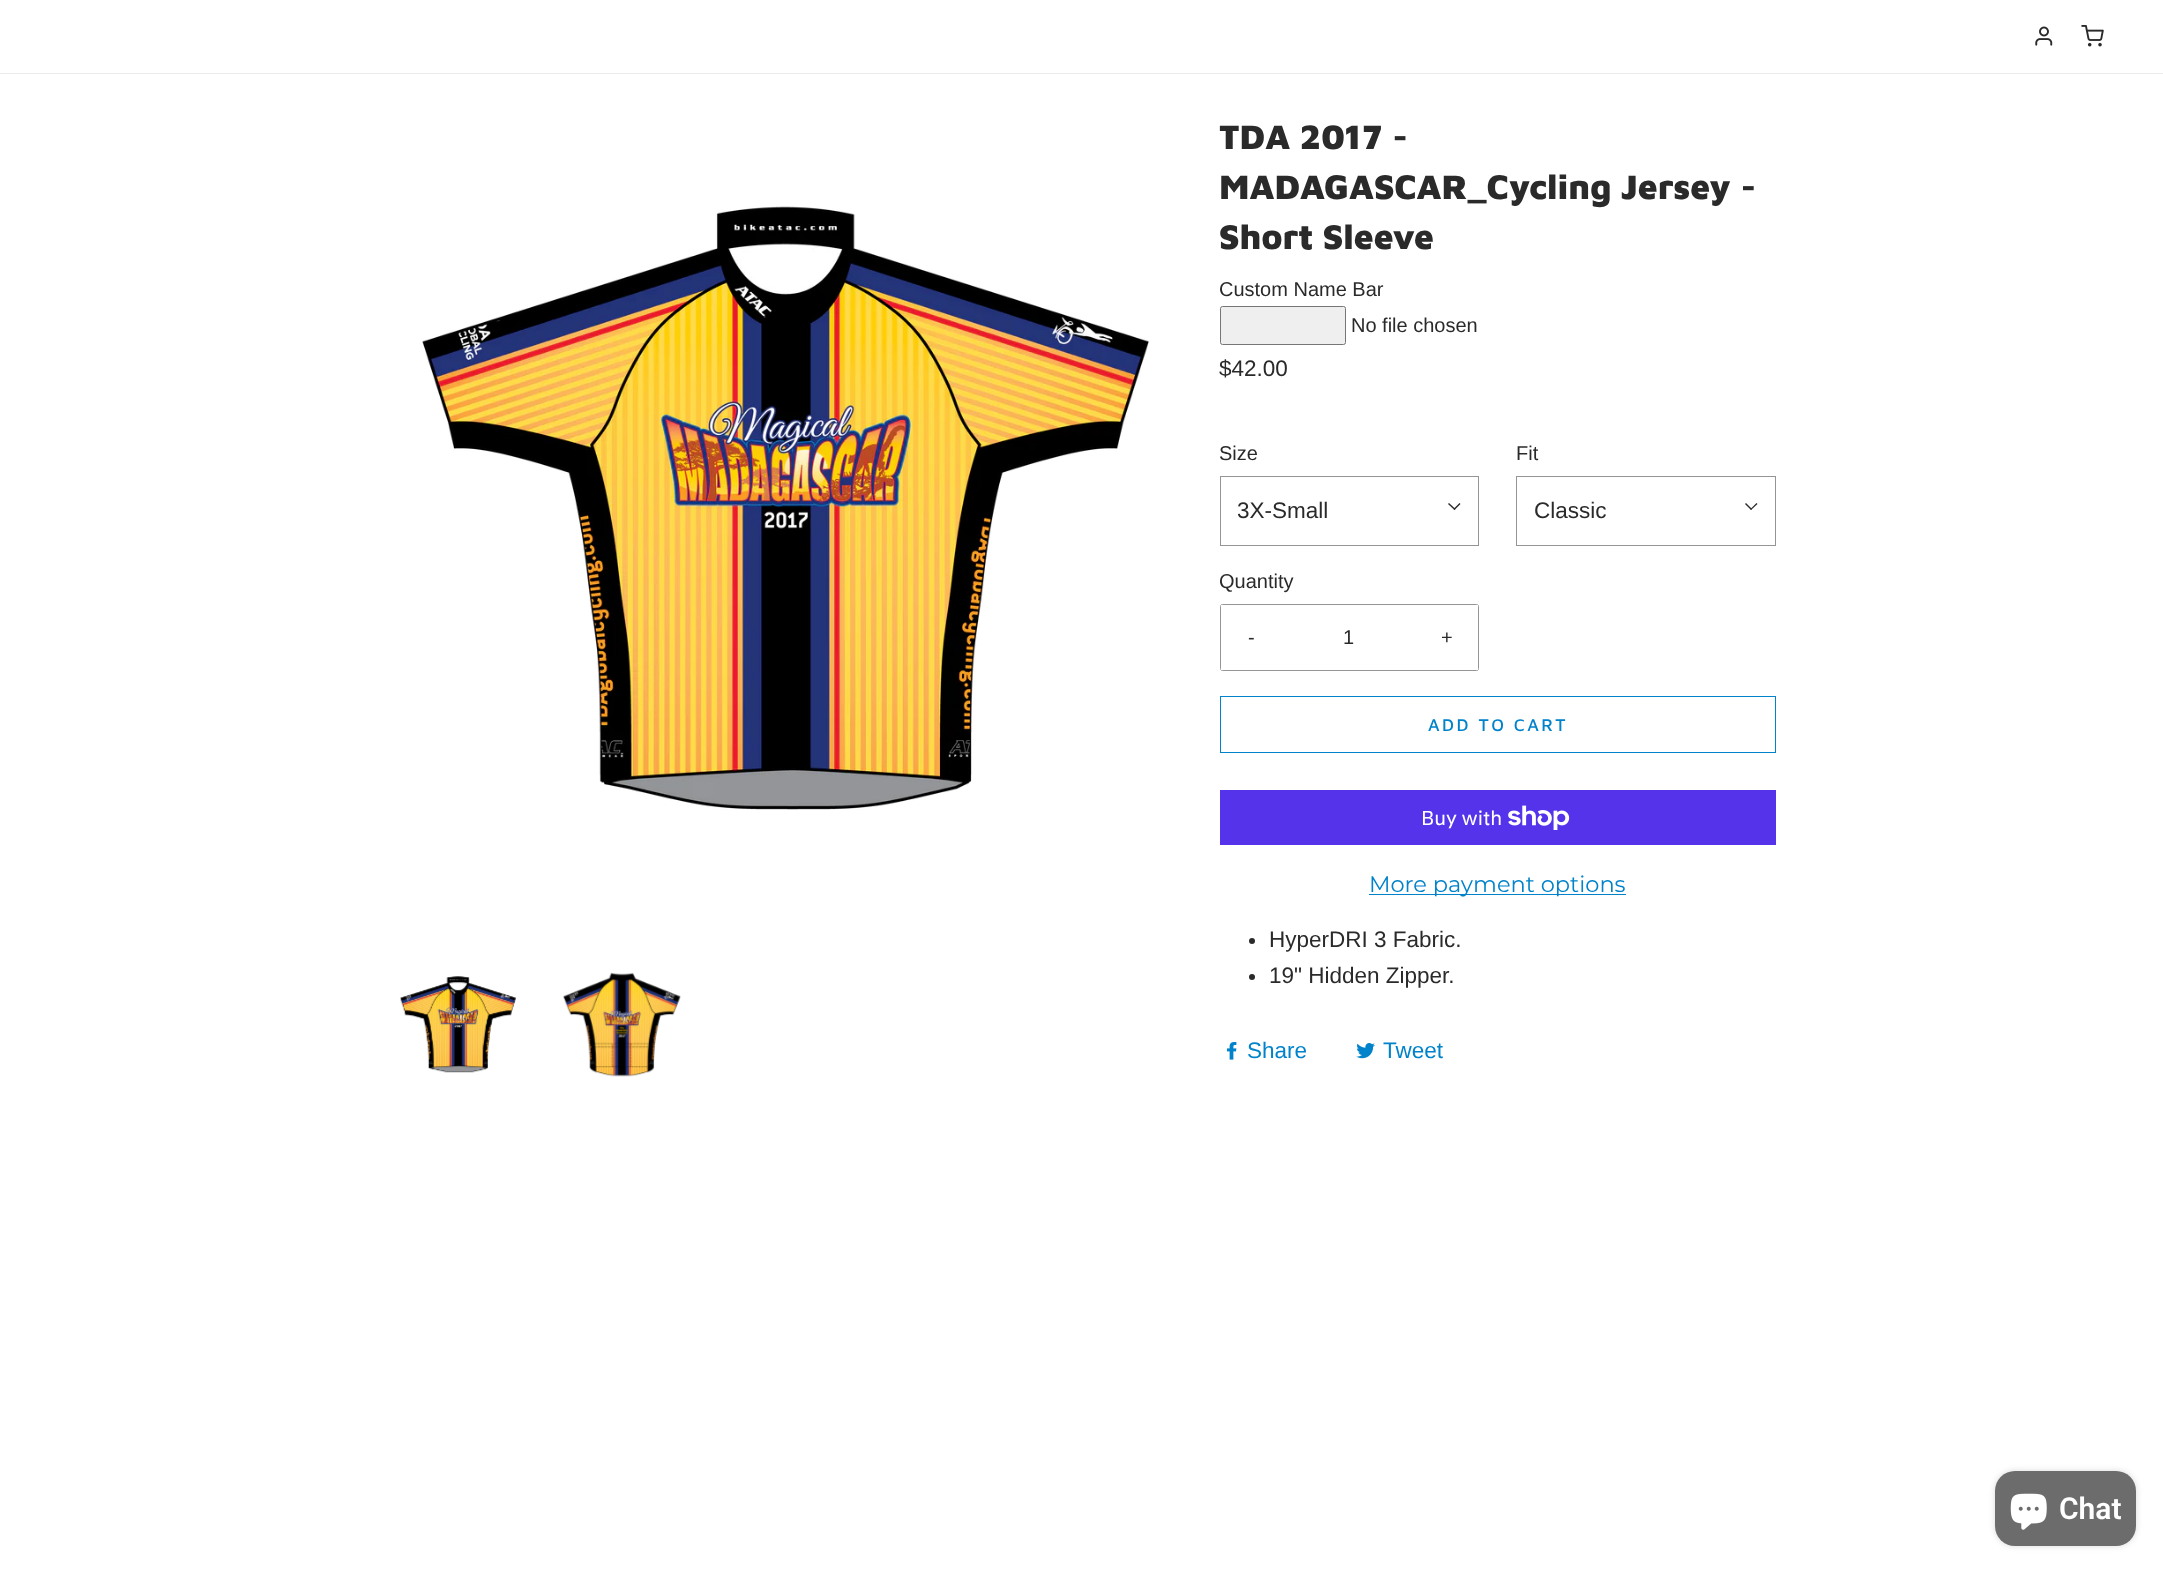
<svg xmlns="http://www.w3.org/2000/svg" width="2163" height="1572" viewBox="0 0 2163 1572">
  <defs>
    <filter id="blur1" x="-50%" y="-200%" width="200%" height="500%"><feGaussianBlur stdDeviation="3"/></filter>
  </defs>
  <rect width="100%" height="100%" fill="#ffffff"/>
  <rect x="0" y="73" width="2163" height="1" fill="#eaeaea"/>
  <image x="2035" y="26" width="18" height="20" href="img1.png"/>
  <image x="2081" y="25" width="23" height="22" href="img2.png"/>
  <image x="422" y="206" width="727" height="604" href="img3.png"/>
  <image x="400" y="976" width="117" height="97" href="img4.png"/>
  <image x="563" y="972" width="118" height="105" href="img5.png"/>
  <text x="1219" y="149" font-family="Maven Pro" font-size="35" font-weight="900" fill="#2a2a2a">TDA 2017 -</text>
  <text x="1219" y="199" font-family="Maven Pro" font-size="35" font-weight="900" fill="#2a2a2a">MADAGASCAR_Cycling Jersey -</text>
  <text x="1219" y="249" font-family="Maven Pro" font-size="35" font-weight="900" fill="#2a2a2a">Short Sleeve</text>
  <text x="1219" y="296" font-family="Liberation Sans" font-size="20" fill="#2a2a2a">Custom Name Bar</text>
  <rect x="1220.5" y="306.5" width="125" height="38" rx="2" fill="#efefef" stroke="#767676"/>
  <text x="1351" y="332" font-family="Liberation Sans" font-size="20" fill="#2a2a2a">No file chosen</text>
  <text x="1219" y="376" font-family="Liberation Sans" font-size="22.5" fill="#2a2a2a">$42.00</text>
  <text x="1219" y="460" font-family="Liberation Sans" font-size="20" fill="#2a2a2a">Size</text>
  <rect x="1220.5" y="476.5" width="258" height="69" fill="none" stroke="#959595"/>
  <text x="1237" y="518" font-family="Liberation Sans" font-size="22.5" fill="#2a2a2a">3X-Small</text>
  <path d="M1459.5 503L1460.5 504L1454.5 510L1453.5 509Z" fill="#2a2a2a"/>
  <path d="M1449 503L1455.5 509L1454.5 510L1448 504Z" fill="#2a2a2a"/>
  <text x="1516" y="460" font-family="Liberation Sans" font-size="20" fill="#2a2a2a">Fit</text>
  <rect x="1516.5" y="476.5" width="259" height="69" fill="none" stroke="#959595"/>
  <text x="1534" y="518" font-family="Liberation Sans" font-size="22.5" fill="#2a2a2a">Classic</text>
  <path d="M1756.5 503L1757.5 504L1751 510L1750.5 509Z" fill="#2a2a2a"/>
  <path d="M1746 503L1752 509L1751 510L1745 504Z" fill="#2a2a2a"/>
  <text x="1219" y="588" font-family="Liberation Sans" font-size="20" fill="#2a2a2a">Quantity</text>
  <rect x="1220.5" y="604.5" width="258" height="66" rx="2" fill="none" stroke="#959595"/>
  <rect x="1221" y="605" width="1" height="65" fill="#ffffff"/>
  <text x="1248" y="644" font-family="Liberation Sans" font-size="20" fill="#2a2a2a">-</text>
  <text x="1343" y="644" font-family="Liberation Sans" font-size="20" fill="#2a2a2a">1</text>
  <rect x="1477" y="605" width="1" height="65" fill="#ffffff"/>
  <text x="1441" y="644" font-family="Liberation Sans" font-size="20" fill="#2a2a2a">+</text>
  <rect x="1220.5" y="696.5" width="555" height="56" fill="none" stroke="#0083ca"/>
  <text x="1428" y="731" font-family="Maven Pro" font-size="17.5" font-weight="500" letter-spacing="2.5" fill="#0083ca">ADD TO CART</text>
  <rect x="1220" y="790" width="556" height="55" fill="#5433eb"/>
  <text x="1421" y="825" font-family="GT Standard" font-size="20" fill="#ffffff">Buy with</text>
  <image x="1508" y="805" width="62" height="25" href="img6.png"/>
  <rect x="1369" y="894" width="257" height="1" fill="#0083ca"/>
  <text x="1369" y="892" font-family="Montserrat" font-size="22.5" fill="#0083ca">More payment options</text>
  <circle cx="1252" cy="941" r="3" fill="#2a2a2a"/>
  <text x="1269" y="947" font-family="Liberation Sans" font-size="22.5" fill="#2a2a2a">HyperDRI 3 Fabric.</text>
  <circle cx="1252" cy="977" r="3" fill="#2a2a2a"/>
  <text x="1269" y="983" font-family="Liberation Sans" font-size="22.5" fill="#2a2a2a">19" Hidden Zipper.</text>
  <image x="1227" y="1042" width="10" height="18" href="img7.png"/>
  <text x="1247" y="1058" font-family="Liberation Sans" font-size="22.5" fill="#0083ca">Share</text>
  <image x="1356" y="1043" width="19" height="16" href="img8.png"/>
  <text x="1383" y="1058" font-family="Liberation Sans" font-size="22.5" fill="#0083ca">Tweet</text>
  <rect x="1995" y="1471" width="141" height="75" rx="20" fill="#000000" fill-opacity="0.15" filter="url(#blur1)"/>
  <rect x="1995" y="1471" width="141" height="75" rx="20" fill="#6c6c6c"/>
  <image x="2010" y="1493" width="37" height="37" href="img9.png"/>
  <text x="2059" y="1519" font-family="Roboto" font-size="30" font-weight="600" fill="#ffffff">Chat</text>
</svg>
